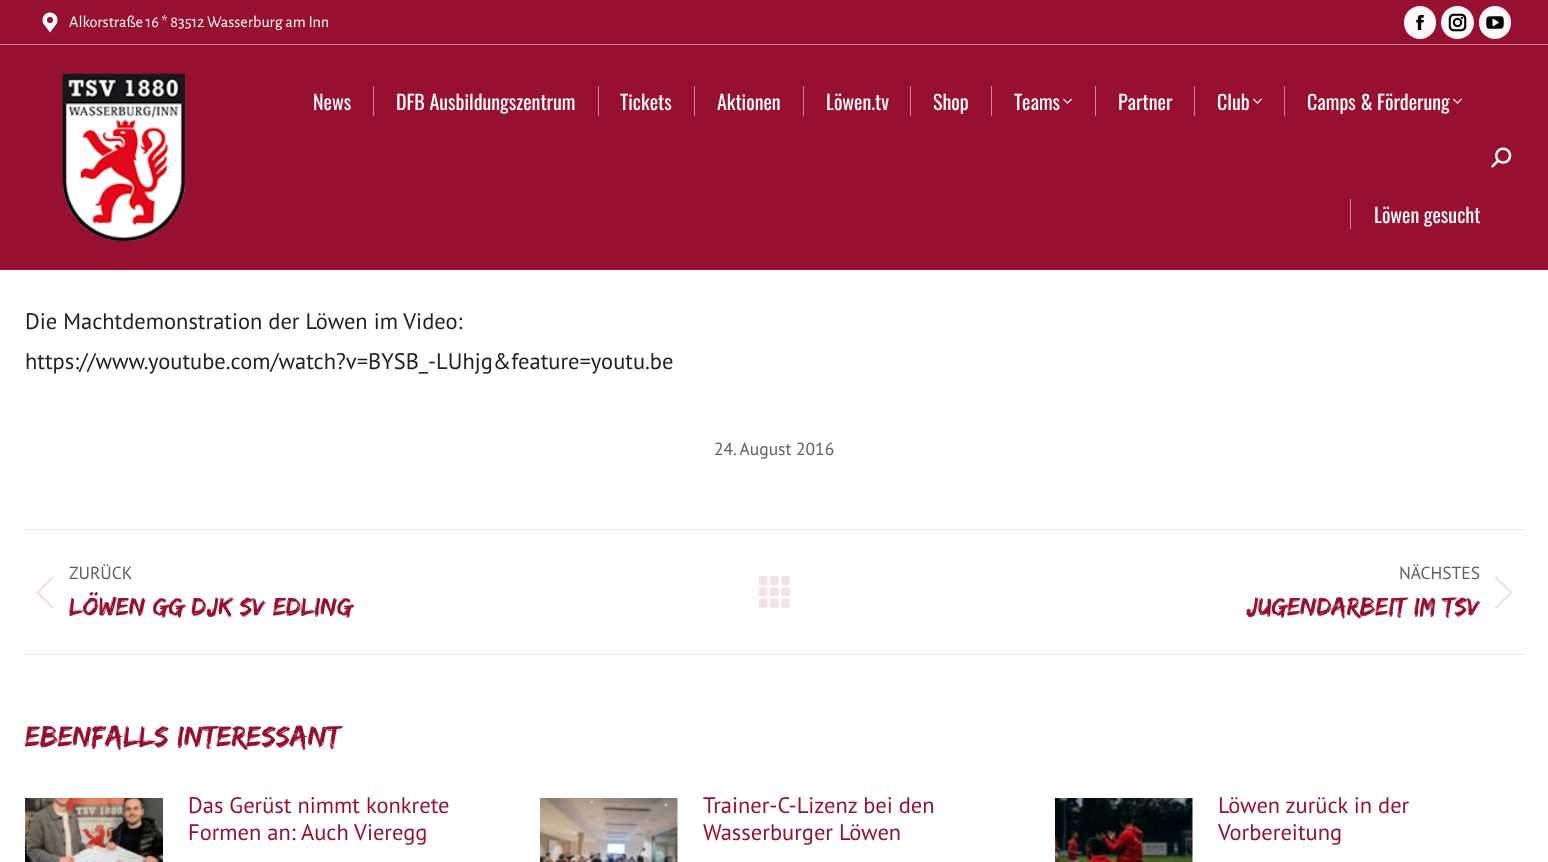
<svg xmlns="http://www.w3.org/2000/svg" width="1548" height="862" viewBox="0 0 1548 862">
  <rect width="100%" height="100%" fill="#ffffff"/>
  <rect x="0" y="0" width="1548" height="270" fill="#981030"/>
  <image x="42" y="12" width="16" height="21" href="img1.png"/>
  <text x="69" y="27" font-family="Alegreya Sans" font-size="16.25" fill="#ffffff">Alkorstraße 16 * 83512 Wasserburg am Inn</text>
  <rect x="1404" y="6" width="32" height="33" rx="16" fill="#fcf8f9"/>
  <image x="1416" y="15" width="8" height="15" href="img2.png"/>
  <circle cx="1457.5" cy="22.5" r="16.5" fill="#fcf8f9"/>
  <image x="1448" y="13" width="19" height="19" href="img3.png"/>
  <rect x="1479" y="6" width="32" height="33" rx="16" fill="#fcf8f9"/>
  <image x="1486" y="16" width="18" height="13" href="img4.png"/>
  <rect x="0" y="44" width="1548" height="1" fill="#cc8898"/>
  <image x="62" y="73" width="123" height="169" href="img5.png"/>
  <text x="313" y="110" font-family="Oswald" font-size="20" fill="#ffffff">News</text>
  <rect x="373" y="86" width="1" height="30" fill="#cc8898"/>
  <text x="396" y="110" font-family="Oswald" font-size="20" fill="#ffffff">DFB Ausbildungszentrum</text>
  <rect x="598" y="86" width="1" height="30" fill="#cc8898"/>
  <text x="620" y="110" font-family="Oswald" font-size="20" fill="#ffffff">Tickets</text>
  <rect x="694" y="86" width="1" height="30" fill="#cc8898"/>
  <text x="717" y="110" font-family="Oswald" font-size="20" fill="#ffffff">Aktionen</text>
  <rect x="803" y="86" width="1" height="30" fill="#cc8898"/>
  <text x="826" y="110" font-family="Oswald" font-size="20" fill="#ffffff">Löwen.tv</text>
  <rect x="910" y="86" width="1" height="30" fill="#cc8898"/>
  <text x="933" y="110" font-family="Oswald" font-size="20" fill="#ffffff">Shop</text>
  <rect x="991" y="86" width="1" height="30" fill="#cc8898"/>
  <text x="1014" y="110" font-family="Oswald" font-size="20" fill="#ffffff">Teams</text>
  <image x="1063" y="98" width="9" height="6" href="img6.png"/>
  <rect x="1095" y="86" width="1" height="30" fill="#cc8898"/>
  <text x="1118" y="110" font-family="Oswald" font-size="20" fill="#ffffff">Partner</text>
  <rect x="1194" y="86" width="1" height="30" fill="#cc8898"/>
  <text x="1217" y="110" font-family="Oswald" font-size="20" fill="#ffffff">Club</text>
  <image x="1253" y="98" width="9" height="6" href="img6.png"/>
  <rect x="1284" y="86" width="1" height="30" fill="#cc8898"/>
  <text x="1307" y="110" font-family="Oswald" font-size="20" fill="#ffffff">Camps &amp; Förderung</text>
  <image x="1453" y="98" width="9" height="6" href="img6.png"/>
  <rect x="1350" y="199" width="1" height="30" fill="#cc8898"/>
  <text x="1374" y="223" font-family="Oswald" font-size="20" fill="#ffffff">Löwen gesucht</text>
  <image x="1491" y="147" width="21" height="21" href="img7.png"/>
  <text x="25" y="329" font-family="PT Sans" font-size="22.5" fill="#202020">Die Machtdemonstration der Löwen im Video:</text>
  <text x="25" y="369" font-family="PT Sans" font-size="22.5" fill="#202020">https://www.youtube.com/watch?v=BYSB_-LUhjg&amp;feature=youtu.be</text>
  <text x="714" y="455" font-family="PT Sans" font-size="17.5" fill="#606060">24. August 2016</text>
  <rect x="25" y="529" width="1499" height="1" fill="#e7e7e7"/>
  <rect x="25" y="654" width="1499" height="1" fill="#e7e7e7"/>
  <text x="69" y="579" font-family="PT Sans" font-size="17.5" fill="#606060">ZURÜCK</text>
  <image x="36" y="576" width="18" height="33" href="img8.png"/>
  <text x="69" y="615" font-family="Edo" font-size="26.25" fill="#981030">Löwen gg DJK SV Edling</text>
  <image x="758" y="576" width="32" height="32" href="img9.png"/>
  <text x="1399" y="579" font-family="PT Sans" font-size="17.5" fill="#606060">NÄCHSTES</text>
  <text x="1246" y="615" font-family="Edo" font-size="26.25" fill="#981030">Jugendarbeit im TSV</text>
  <image x="1495" y="576" width="18" height="33" href="img10.png"/>
  <text x="25" y="746" font-family="Edo" font-size="30" fill="#981030">Ebenfalls interessant:</text>
  <image x="25" y="798" width="138" height="64" href="img11.png"/>
  <text x="188" y="813" font-family="PT Sans" font-size="22.5" fill="#981030">Das Gerüst nimmt konkrete</text>
  <text x="188" y="840" font-family="PT Sans" font-size="22.5" fill="#981030">Formen an: Auch Vieregg</text>
  <image x="540" y="798" width="138" height="64" href="img12.png"/>
  <text x="703" y="813" font-family="PT Sans" font-size="22.5" fill="#981030">Trainer-C-Lizenz bei den</text>
  <text x="703" y="840" font-family="PT Sans" font-size="22.5" fill="#981030">Wasserburger Löwen</text>
  <image x="1055" y="798" width="138" height="64" href="img13.png"/>
  <text x="1218" y="813" font-family="PT Sans" font-size="22.5" fill="#981030">Löwen zurück in der</text>
  <text x="1218" y="840" font-family="PT Sans" font-size="22.5" fill="#981030">Vorbereitung</text>
</svg>
